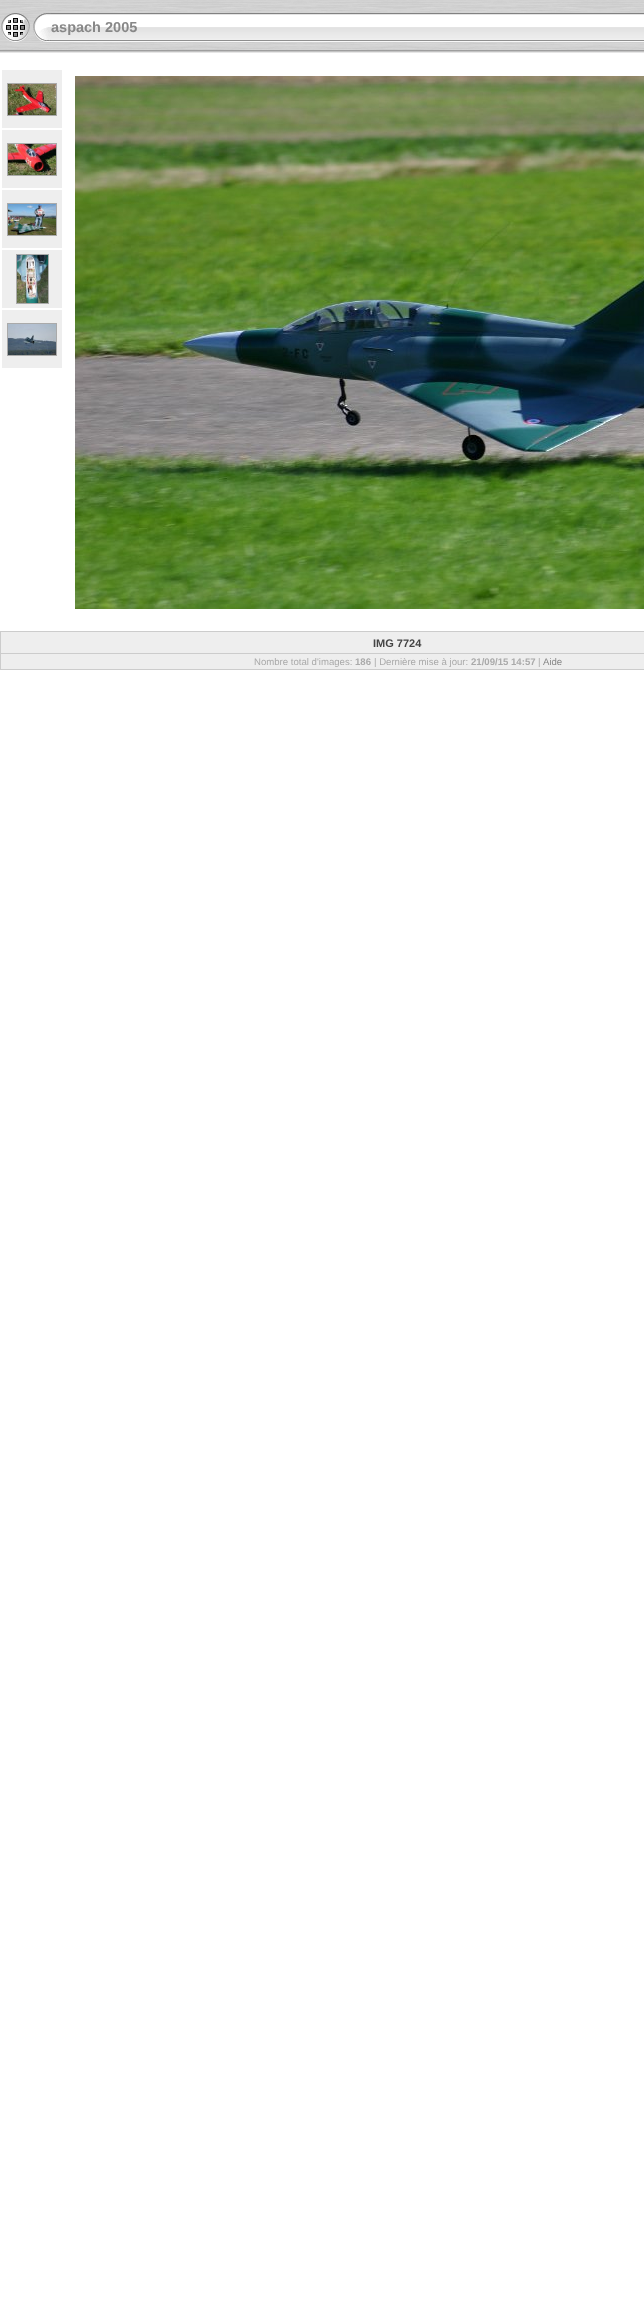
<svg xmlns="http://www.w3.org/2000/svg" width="644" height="2317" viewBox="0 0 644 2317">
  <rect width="100%" height="100%" fill="#ffffff"/>
  <image x="0" y="0" width="644" height="53" href="img1.png"/>
  <image x="1" y="13" width="29" height="29" href="img2.png"/>
  <image x="33" y="13" width="18" height="29" href="img3.png"/>
  <image x="51" y="13" width="593" height="29" href="img4.png"/>
  <text x="51" y="32" font-family="Liberation Sans" font-size="14.5" font-weight="bold" fill="#888888">aspach 2005</text>
  <rect x="2" y="70" width="60" height="58" fill="#eeeeee"/>
  <rect x="7.5" y="83.5" width="49" height="32" fill="none" stroke="#aaaaaa"/>
  <image x="8" y="84" width="48" height="31" href="img5.png"/>
  <rect x="2" y="130" width="60" height="58" fill="#eeeeee"/>
  <rect x="7.5" y="143.5" width="49" height="32" fill="none" stroke="#aaaaaa"/>
  <image x="8" y="144" width="48" height="31" href="img6.png"/>
  <rect x="2" y="190" width="60" height="58" fill="#eeeeee"/>
  <rect x="7.5" y="203.5" width="49" height="32" fill="none" stroke="#aaaaaa"/>
  <image x="8" y="204" width="48" height="31" href="img7.png"/>
  <rect x="2" y="250" width="60" height="58" fill="#eeeeee"/>
  <rect x="16.5" y="254.5" width="32" height="49" fill="none" stroke="#aaaaaa"/>
  <image x="17" y="255" width="31" height="48" href="img8.png"/>
  <rect x="2" y="310" width="60" height="58" fill="#eeeeee"/>
  <rect x="7.5" y="323.5" width="49" height="32" fill="none" stroke="#aaaaaa"/>
  <image x="8" y="324" width="48" height="31" href="img9.png"/>
  <image x="75" y="76" width="569" height="533" href="img10.png"/>
  <rect x="1" y="632" width="643" height="37" fill="#eeeeee"/>
  <rect x="0" y="631" width="644" height="1" fill="#cccccc"/>
  <rect x="0" y="669" width="644" height="1" fill="#cccccc"/>
  <rect x="0" y="631" width="1" height="39" fill="#cccccc"/>
  <text x="373" y="647" font-family="Liberation Sans" font-size="11" font-weight="bold" fill="#444444">IMG 7724</text>
  <rect x="0" y="653" width="644" height="1" fill="#cccccc"/>
  <text x="254" y="665" font-family="Liberation Sans" font-size="9.6" fill="#aaaaaa">Nombre total d'images:</text>
  <text x="355" y="665" font-family="Liberation Sans" font-size="9.6" font-weight="bold" fill="#aaaaaa">186</text>
  <text x="374" y="665" font-family="Liberation Sans" font-size="9.6" fill="#aaaaaa">| Dernière mise à jour:</text>
  <text x="471" y="665" font-family="Liberation Sans" font-size="9.6" font-weight="bold" fill="#aaaaaa">21/09/15 14:57</text>
  <text x="538" y="665" font-family="Liberation Sans" font-size="9.6" fill="#aaaaaa">|</text>
  <text x="543" y="665" font-family="Liberation Sans" font-size="9.6" fill="#888888">Aide</text>
</svg>
